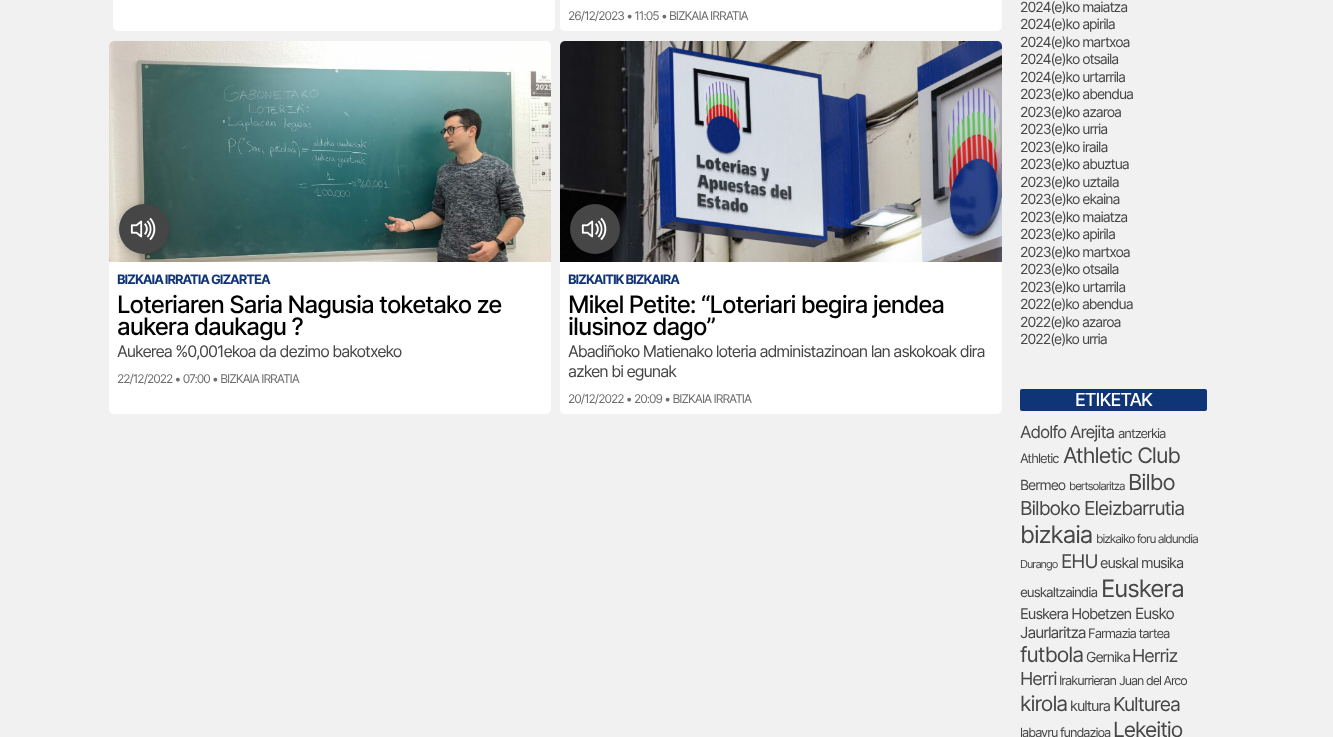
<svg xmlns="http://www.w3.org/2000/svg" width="1333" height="737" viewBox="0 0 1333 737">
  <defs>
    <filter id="blur1" x="-50%" y="-200%" width="200%" height="500%"><feGaussianBlur stdDeviation="5"/></filter>
  </defs>
  <rect width="100%" height="100%" fill="#f1f1f1"/>
  <rect x="113" y="-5" width="442" height="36" rx="5" fill="#ffffff"/>
  <rect x="560" y="-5" width="442" height="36" rx="5" fill="#ffffff"/>
  <text x="568" y="20" font-family="Inter" font-size="12" letter-spacing="-1" fill="#6d6d6d">26/12/2023 • 11:05 • BIZKAIA IRRATIA</text>
  <rect x="109" y="41" width="442" height="373" rx="5" fill="#ffffff"/>
  <image x="109" y="41" width="442" height="221" href="img1.png"/>
  <rect x="119" y="205" width="50" height="50" rx="25" fill="#000000" fill-opacity="0.2" filter="url(#blur1)"/>
  <circle cx="144" cy="229" r="25" fill="#464646"/>
  <image x="130" y="217" width="26" height="24" href="img2.png"/>
  <text x="117" y="284" font-family="Inter" font-size="13" font-weight="bold" letter-spacing="-1" fill="#0f3577">BIZKAIA IRRATIA GIZARTEA</text>
  <text x="117" y="313" font-family="Inter" font-size="24" font-weight="500" letter-spacing="-1" fill="#000000">Loteriaren Saria Nagusia toketako ze</text>
  <text x="117" y="335" font-family="Inter" font-size="24" font-weight="500" letter-spacing="-1" fill="#000000">aukera daukagu ?</text>
  <text x="117" y="357" font-family="Inter" font-size="16" letter-spacing="-1" fill="#464646">Aukerea %0,001ekoa da dezimo bakotxeko</text>
  <text x="117" y="383" font-family="Inter" font-size="12" letter-spacing="-1" fill="#6d6d6d">22/12/2022 • 07:00 • BIZKAIA IRRATIA</text>
  <rect x="560" y="41" width="442" height="373" rx="5" fill="#ffffff"/>
  <image x="560" y="41" width="442" height="221" href="img3.png"/>
  <circle cx="595" cy="229" r="25" fill="#464646"/>
  <image x="581" y="217" width="26" height="24" href="img2.png"/>
  <text x="568" y="284" font-family="Inter" font-size="13" font-weight="bold" letter-spacing="-1" fill="#0f3577">BIZKAITIK BIZKAIRA</text>
  <text x="568" y="313" font-family="Inter" font-size="24" font-weight="500" letter-spacing="-1" fill="#000000">Mikel Petite: “Loteriari begira jendea</text>
  <text x="568" y="335" font-family="Inter" font-size="24" font-weight="500" letter-spacing="-1" fill="#000000">ilusinoz dago”</text>
  <text x="568" y="357" font-family="Inter" font-size="16" letter-spacing="-1" fill="#464646">Abadiñoko Matienako loteria administazinoan lan askokoak dira</text>
  <text x="568" y="377" font-family="Inter" font-size="16" letter-spacing="-1" fill="#464646">azken bi egunak</text>
  <text x="568" y="403" font-family="Inter" font-size="12" letter-spacing="-1" fill="#6d6d6d">20/12/2022 • 20:09 • BIZKAIA IRRATIA</text>
  <text x="1020" y="12" font-family="Inter" font-size="14" letter-spacing="-1" fill="#464646">2024(e)ko maiatza</text>
  <text x="1020" y="29" font-family="Inter" font-size="14" letter-spacing="-1" fill="#464646">2024(e)ko apirila</text>
  <text x="1020" y="47" font-family="Inter" font-size="14" letter-spacing="-1" fill="#464646">2024(e)ko martxoa</text>
  <text x="1020" y="64" font-family="Inter" font-size="14" letter-spacing="-1" fill="#464646">2024(e)ko otsaila</text>
  <text x="1020" y="82" font-family="Inter" font-size="14" letter-spacing="-1" fill="#464646">2024(e)ko urtarrila</text>
  <text x="1020" y="99" font-family="Inter" font-size="14" letter-spacing="-1" fill="#464646">2023(e)ko abendua</text>
  <text x="1020" y="117" font-family="Inter" font-size="14" letter-spacing="-1" fill="#464646">2023(e)ko azaroa</text>
  <text x="1020" y="134" font-family="Inter" font-size="14" letter-spacing="-1" fill="#464646">2023(e)ko urria</text>
  <text x="1020" y="152" font-family="Inter" font-size="14" letter-spacing="-1" fill="#464646">2023(e)ko iraila</text>
  <text x="1020" y="169" font-family="Inter" font-size="14" letter-spacing="-1" fill="#464646">2023(e)ko abuztua</text>
  <text x="1020" y="187" font-family="Inter" font-size="14" letter-spacing="-1" fill="#464646">2023(e)ko uztaila</text>
  <text x="1020" y="204" font-family="Inter" font-size="14" letter-spacing="-1" fill="#464646">2023(e)ko ekaina</text>
  <text x="1020" y="222" font-family="Inter" font-size="14" letter-spacing="-1" fill="#464646">2023(e)ko maiatza</text>
  <text x="1020" y="239" font-family="Inter" font-size="14" letter-spacing="-1" fill="#464646">2023(e)ko apirila</text>
  <text x="1020" y="257" font-family="Inter" font-size="14" letter-spacing="-1" fill="#464646">2023(e)ko martxoa</text>
  <text x="1020" y="274" font-family="Inter" font-size="14" letter-spacing="-1" fill="#464646">2023(e)ko otsaila</text>
  <text x="1020" y="292" font-family="Inter" font-size="14" letter-spacing="-1" fill="#464646">2023(e)ko urtarrila</text>
  <text x="1020" y="309" font-family="Inter" font-size="14" letter-spacing="-1" fill="#464646">2022(e)ko abendua</text>
  <text x="1020" y="327" font-family="Inter" font-size="14" letter-spacing="-1" fill="#464646">2022(e)ko azaroa</text>
  <text x="1020" y="344" font-family="Inter" font-size="14" letter-spacing="-1" fill="#464646">2022(e)ko urria</text>
  <rect x="1020" y="389" width="187" height="22" rx="2" fill="#0f3577"/>
  <text x="1075" y="406" font-family="Inter" font-size="18" font-weight="500" letter-spacing="-1" fill="#ffffff">ETIKETAK</text>
  <text x="1020" y="438" font-family="Inter" font-size="17" letter-spacing="-1" fill="#464646">Adolfo Arejita</text>
  <text x="1118" y="438" font-family="Inter" font-size="13" letter-spacing="-1" fill="#464646">antzerkia</text>
  <text x="1020" y="463" font-family="Inter" font-size="13" letter-spacing="-1" fill="#464646">Athletic</text>
  <text x="1063" y="463" font-family="Inter" font-size="21.5" letter-spacing="-1" fill="#464646">Athletic Club</text>
  <text x="1020" y="490" font-family="Inter" font-size="14" letter-spacing="-1" fill="#464646">Bermeo</text>
  <text x="1069" y="490" font-family="Inter" font-size="11.5" letter-spacing="-1" fill="#464646">bertsolaritza</text>
  <text x="1128" y="490" font-family="Inter" font-size="22" letter-spacing="-1" fill="#464646">Bilbo</text>
  <text x="1020" y="515" font-family="Inter" font-size="19.25" letter-spacing="-1" fill="#464646">Bilboko Eleizbarrutia</text>
  <text x="1020" y="543" font-family="Inter" font-size="24" letter-spacing="-1" fill="#464646">bizkaia</text>
  <text x="1096" y="543" font-family="Inter" font-size="12" letter-spacing="-1" fill="#464646">bizkaiko foru aldundia</text>
  <text x="1020" y="568" font-family="Inter" font-size="11" letter-spacing="-1" fill="#464646">Durango</text>
  <text x="1061" y="568" font-family="Inter" font-size="19" letter-spacing="-1" fill="#464646">EHU</text>
  <text x="1100" y="568" font-family="Inter" font-size="14.5" letter-spacing="-1" fill="#464646">euskal musika</text>
  <text x="1020" y="597" font-family="Inter" font-size="13.5" letter-spacing="-1" fill="#464646">euskaltzaindia</text>
  <text x="1101" y="597" font-family="Inter" font-size="24" letter-spacing="-1" fill="#464646">Euskera</text>
  <text x="1020" y="619" font-family="Inter" font-size="14.75" letter-spacing="-1" fill="#464646">Euskera Hobetzen</text>
  <text x="1135" y="619" font-family="Inter" font-size="15.5" letter-spacing="-1" fill="#464646">Eusko</text>
  <text x="1020" y="638" font-family="Inter" font-size="15.5" letter-spacing="-1" fill="#464646">Jaurlaritza</text>
  <text x="1088" y="638" font-family="Inter" font-size="13" letter-spacing="-1" fill="#464646">Farmazia tartea</text>
  <text x="1020" y="662" font-family="Inter" font-size="21" letter-spacing="-1" fill="#464646">futbola</text>
  <text x="1086" y="662" font-family="Inter" font-size="14" letter-spacing="-1" fill="#464646">Gernika</text>
  <text x="1132" y="662" font-family="Inter" font-size="18" letter-spacing="-1" fill="#464646">Herriz</text>
  <text x="1020" y="685" font-family="Inter" font-size="18" letter-spacing="-1" fill="#464646">Herri</text>
  <text x="1059" y="685" font-family="Inter" font-size="12.75" letter-spacing="-1" fill="#464646">Irakurrieran</text>
  <text x="1119" y="685" font-family="Inter" font-size="12.5" letter-spacing="-1" fill="#464646">Juan del Arco</text>
  <text x="1020" y="711" font-family="Inter" font-size="21" letter-spacing="-1" fill="#464646">kirola</text>
  <text x="1070" y="711" font-family="Inter" font-size="14.5" letter-spacing="-1" fill="#464646">kultura</text>
  <text x="1113" y="711" font-family="Inter" font-size="19.25" letter-spacing="-1" fill="#464646">Kulturea</text>
  <text x="1020" y="737" font-family="Inter" font-size="12.75" letter-spacing="-1" fill="#464646">labayru fundazioa</text>
  <text x="1113" y="737" font-family="Inter" font-size="21" letter-spacing="-1" fill="#464646">Lekeitio</text>
</svg>
